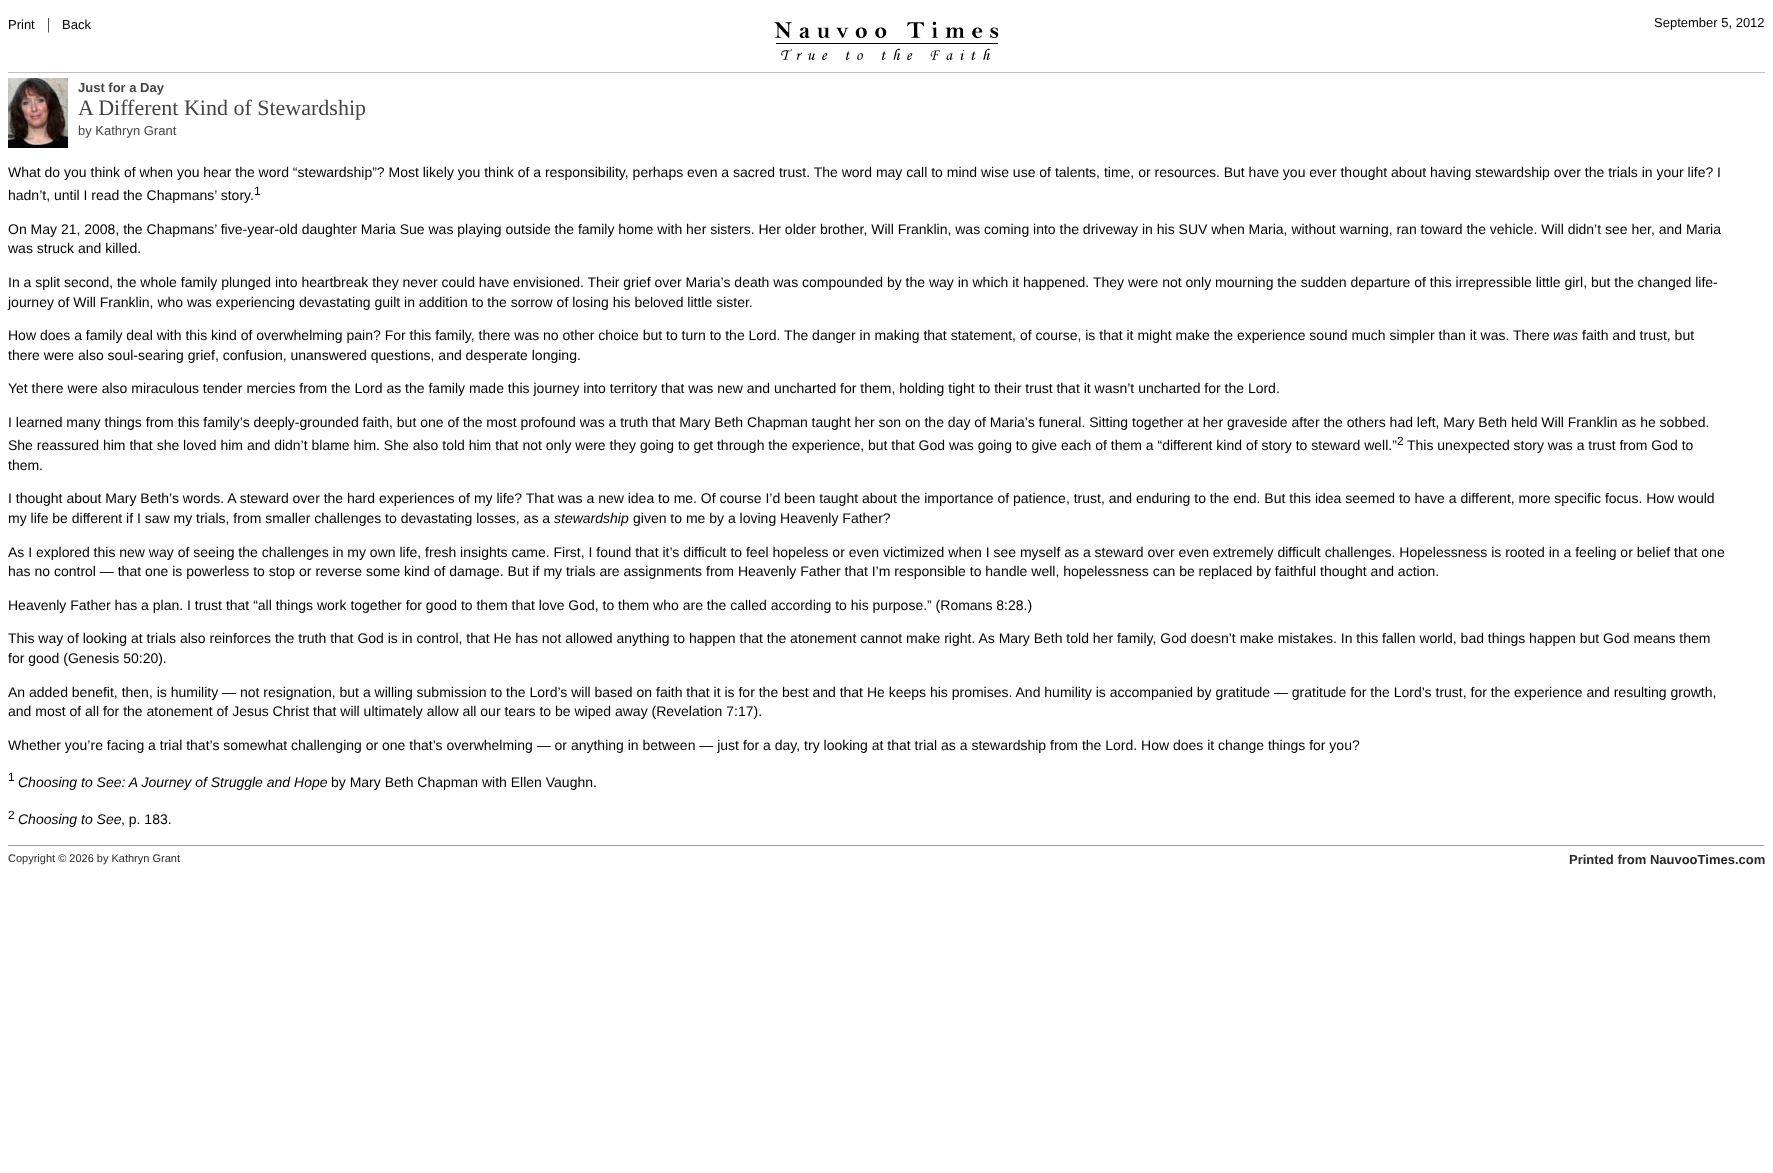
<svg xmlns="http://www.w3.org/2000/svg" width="1773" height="1173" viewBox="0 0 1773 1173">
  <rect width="100%" height="100%" fill="#ffffff"/>
  <text x="8" y="29" font-family="Liberation Sans" font-size="13" fill="#000000">Print</text>
  <text x="47" y="29" font-family="Liberation Serif" font-size="16" fill="#282828">|</text>
  <text x="62" y="29" font-family="Liberation Sans" font-size="13" fill="#000000">Back</text>
  <image x="774" y="21" width="225" height="39" href="img1.png"/>
  <text x="1654" y="27" font-family="Liberation Sans" font-size="13" fill="#000000">September 5, 2012</text>
  <rect x="8" y="72" width="1757" height="1" fill="#c0c0c0"/>
  <image x="8" y="78" width="60" height="70" href="img2.png"/>
  <text x="78" y="92" font-family="Liberation Sans" font-size="13" font-weight="bold" fill="#444444">Just for a Day</text>
  <text x="78" y="115" font-family="Liberation Serif" font-size="22" fill="#444444">A Different Kind of Stewardship</text>
  <text x="78" y="135" font-family="Liberation Sans" font-size="13" fill="#444444">by Kathryn Grant</text>
  <text x="8" y="177" font-family="Liberation Sans" font-size="14" fill="#000000">What do you think of when you hear the word “stewardship”? Most likely you think of a responsibility, perhaps even a sacred trust. The word may call to mind wise use of talents, time, or resources. But have you ever thought about having stewardship over the trials in your life? I</text>
  <text x="8" y="200" font-family="Liberation Sans" font-size="14" fill="#000000">hadn’t, until I read the Chapmans’ story.</text>
  <text x="254" y="195" font-family="Liberation Sans" font-size="12" fill="#000000">1</text>
  <text x="8" y="234" font-family="Liberation Sans" font-size="14" fill="#000000">On May 21, 2008, the Chapmans’ five-year-old daughter Maria Sue was playing outside the family home with her sisters. Her older brother, Will Franklin, was coming into the driveway in his SUV when Maria, without warning, ran toward the vehicle. Will didn’t see her, and Maria</text>
  <text x="8" y="253" font-family="Liberation Sans" font-size="14" fill="#000000">was struck and killed.</text>
  <text x="8" y="287" font-family="Liberation Sans" font-size="14" fill="#000000">In a split second, the whole family plunged into heartbreak they never could have envisioned. Their grief over Maria’s death was compounded by the way in which it happened. They were not only mourning the sudden departure of this irrepressible little girl, but the changed life-</text>
  <text x="8" y="307" font-family="Liberation Sans" font-size="14" fill="#000000">journey of Will Franklin, who was experiencing devastating guilt in addition to the sorrow of losing his beloved little sister.</text>
  <text x="8" y="340" font-family="Liberation Sans" font-size="14" fill="#000000">How does a family deal with this kind of overwhelming pain? For this family, there was no other choice but to turn to the Lord. The danger in making that statement, of course, is that it might make the experience sound much simpler than it was. There</text>
  <text x="1553" y="340" font-family="Liberation Sans" font-size="14" font-style="italic" fill="#000000">was</text>
  <text x="1582" y="340" font-family="Liberation Sans" font-size="14" fill="#000000">faith and trust, but</text>
  <text x="8" y="360" font-family="Liberation Sans" font-size="14" fill="#000000">there were also soul-searing grief, confusion, unanswered questions, and desperate longing.</text>
  <text x="8" y="393" font-family="Liberation Sans" font-size="14" fill="#000000">Yet there were also miraculous tender mercies from the Lord as the family made this journey into territory that was new and uncharted for them, holding tight to their trust that it wasn’t uncharted for the Lord.</text>
  <text x="8" y="427" font-family="Liberation Sans" font-size="14" fill="#000000">I learned many things from this family’s deeply-grounded faith, but one of the most profound was a truth that Mary Beth Chapman taught her son on the day of Maria’s funeral. Sitting together at her graveside after the others had left, Mary Beth held Will Franklin as he sobbed.</text>
  <text x="8" y="450" font-family="Liberation Sans" font-size="14" fill="#000000">She reassured him that she loved him and didn’t blame him. She also told him that not only were they going to get through the experience, but that God was going to give each of them a “different kind of story to steward well.”</text>
  <text x="1397" y="445" font-family="Liberation Sans" font-size="12" fill="#000000">2</text>
  <text x="1407" y="450" font-family="Liberation Sans" font-size="14" fill="#000000">This unexpected story was a trust from God to</text>
  <text x="8" y="470" font-family="Liberation Sans" font-size="14" fill="#000000">them.</text>
  <text x="8" y="503" font-family="Liberation Sans" font-size="14" fill="#000000">I thought about Mary Beth’s words. A steward over the hard experiences of my life? That was a new idea to me. Of course I’d been taught about the importance of patience, trust, and enduring to the end. But this idea seemed to have a different, more specific focus. How would</text>
  <text x="8" y="523" font-family="Liberation Sans" font-size="14" fill="#000000">my life be different if I saw my trials, from smaller challenges to devastating losses, as a</text>
  <text x="554" y="523" font-family="Liberation Sans" font-size="14" font-style="italic" fill="#000000">stewardship</text>
  <text x="633" y="523" font-family="Liberation Sans" font-size="14" fill="#000000">given to me by a loving Heavenly Father?</text>
  <text x="8" y="557" font-family="Liberation Sans" font-size="14" fill="#000000">As I explored this new way of seeing the challenges in my own life, fresh insights came. First, I found that it’s difficult to feel hopeless or even victimized when I see myself as a steward over even extremely difficult challenges. Hopelessness is rooted in a feeling or belief that one</text>
  <text x="8" y="576" font-family="Liberation Sans" font-size="14" fill="#000000">has no control — that one is powerless to stop or reverse some kind of damage. But if my trials are assignments from Heavenly Father that I’m responsible to handle well, hopelessness can be replaced by faithful thought and action.</text>
  <text x="8" y="610" font-family="Liberation Sans" font-size="14" fill="#000000">Heavenly Father has a plan. I trust that “all things work together for good to them that love God, to them who are the called according to his purpose.” (Romans 8:28.)</text>
  <text x="8" y="643" font-family="Liberation Sans" font-size="14" fill="#000000">This way of looking at trials also reinforces the truth that God is in control, that He has not allowed anything to happen that the atonement cannot make right. As Mary Beth told her family, God doesn’t make mistakes. In this fallen world, bad things happen but God means them</text>
  <text x="8" y="663" font-family="Liberation Sans" font-size="14" fill="#000000">for good (Genesis 50:20).</text>
  <text x="8" y="697" font-family="Liberation Sans" font-size="14" fill="#000000">An added benefit, then, is humility — not resignation, but a willing submission to the Lord’s will based on faith that it is for the best and that He keeps his promises. And humility is accompanied by gratitude — gratitude for the Lord’s trust, for the experience and resulting growth,</text>
  <text x="8" y="716" font-family="Liberation Sans" font-size="14" fill="#000000">and most of all for the atonement of Jesus Christ that will ultimately allow all our tears to be wiped away (Revelation 7:17).</text>
  <text x="8" y="750" font-family="Liberation Sans" font-size="14" fill="#000000">Whether you’re facing a trial that’s somewhat challenging or one that’s overwhelming — or anything in between — just for a day, try looking at that trial as a stewardship from the Lord. How does it change things for you?</text>
  <text x="8" y="781" font-family="Liberation Sans" font-size="12" fill="#000000">1</text>
  <text x="18" y="787" font-family="Liberation Sans" font-size="14" font-style="italic" fill="#000000">Choosing to See: A Journey of Struggle and Hope</text>
  <text x="331" y="787" font-family="Liberation Sans" font-size="14" fill="#000000">by Mary Beth Chapman with Ellen Vaughn.</text>
  <text x="8" y="819" font-family="Liberation Sans" font-size="12" fill="#000000">2</text>
  <text x="18" y="824" font-family="Liberation Sans" font-size="14" font-style="italic" fill="#000000">Choosing to See</text>
  <text x="121" y="824" font-family="Liberation Sans" font-size="14" fill="#000000">, p. 183.</text>
  <rect x="8" y="845" width="1757" height="1" fill="#9f9f9f"/>
  <rect x="1764" y="845" width="1" height="1" fill="#eeeeee"/>
  <text x="8" y="862" font-family="Liberation Sans" font-size="11" fill="#282828">Copyright © 2026 by Kathryn Grant</text>
  <text x="1569" y="864" font-family="Liberation Sans" font-size="13" font-weight="bold" fill="#282828">Printed from NauvooTimes.com</text>
</svg>
